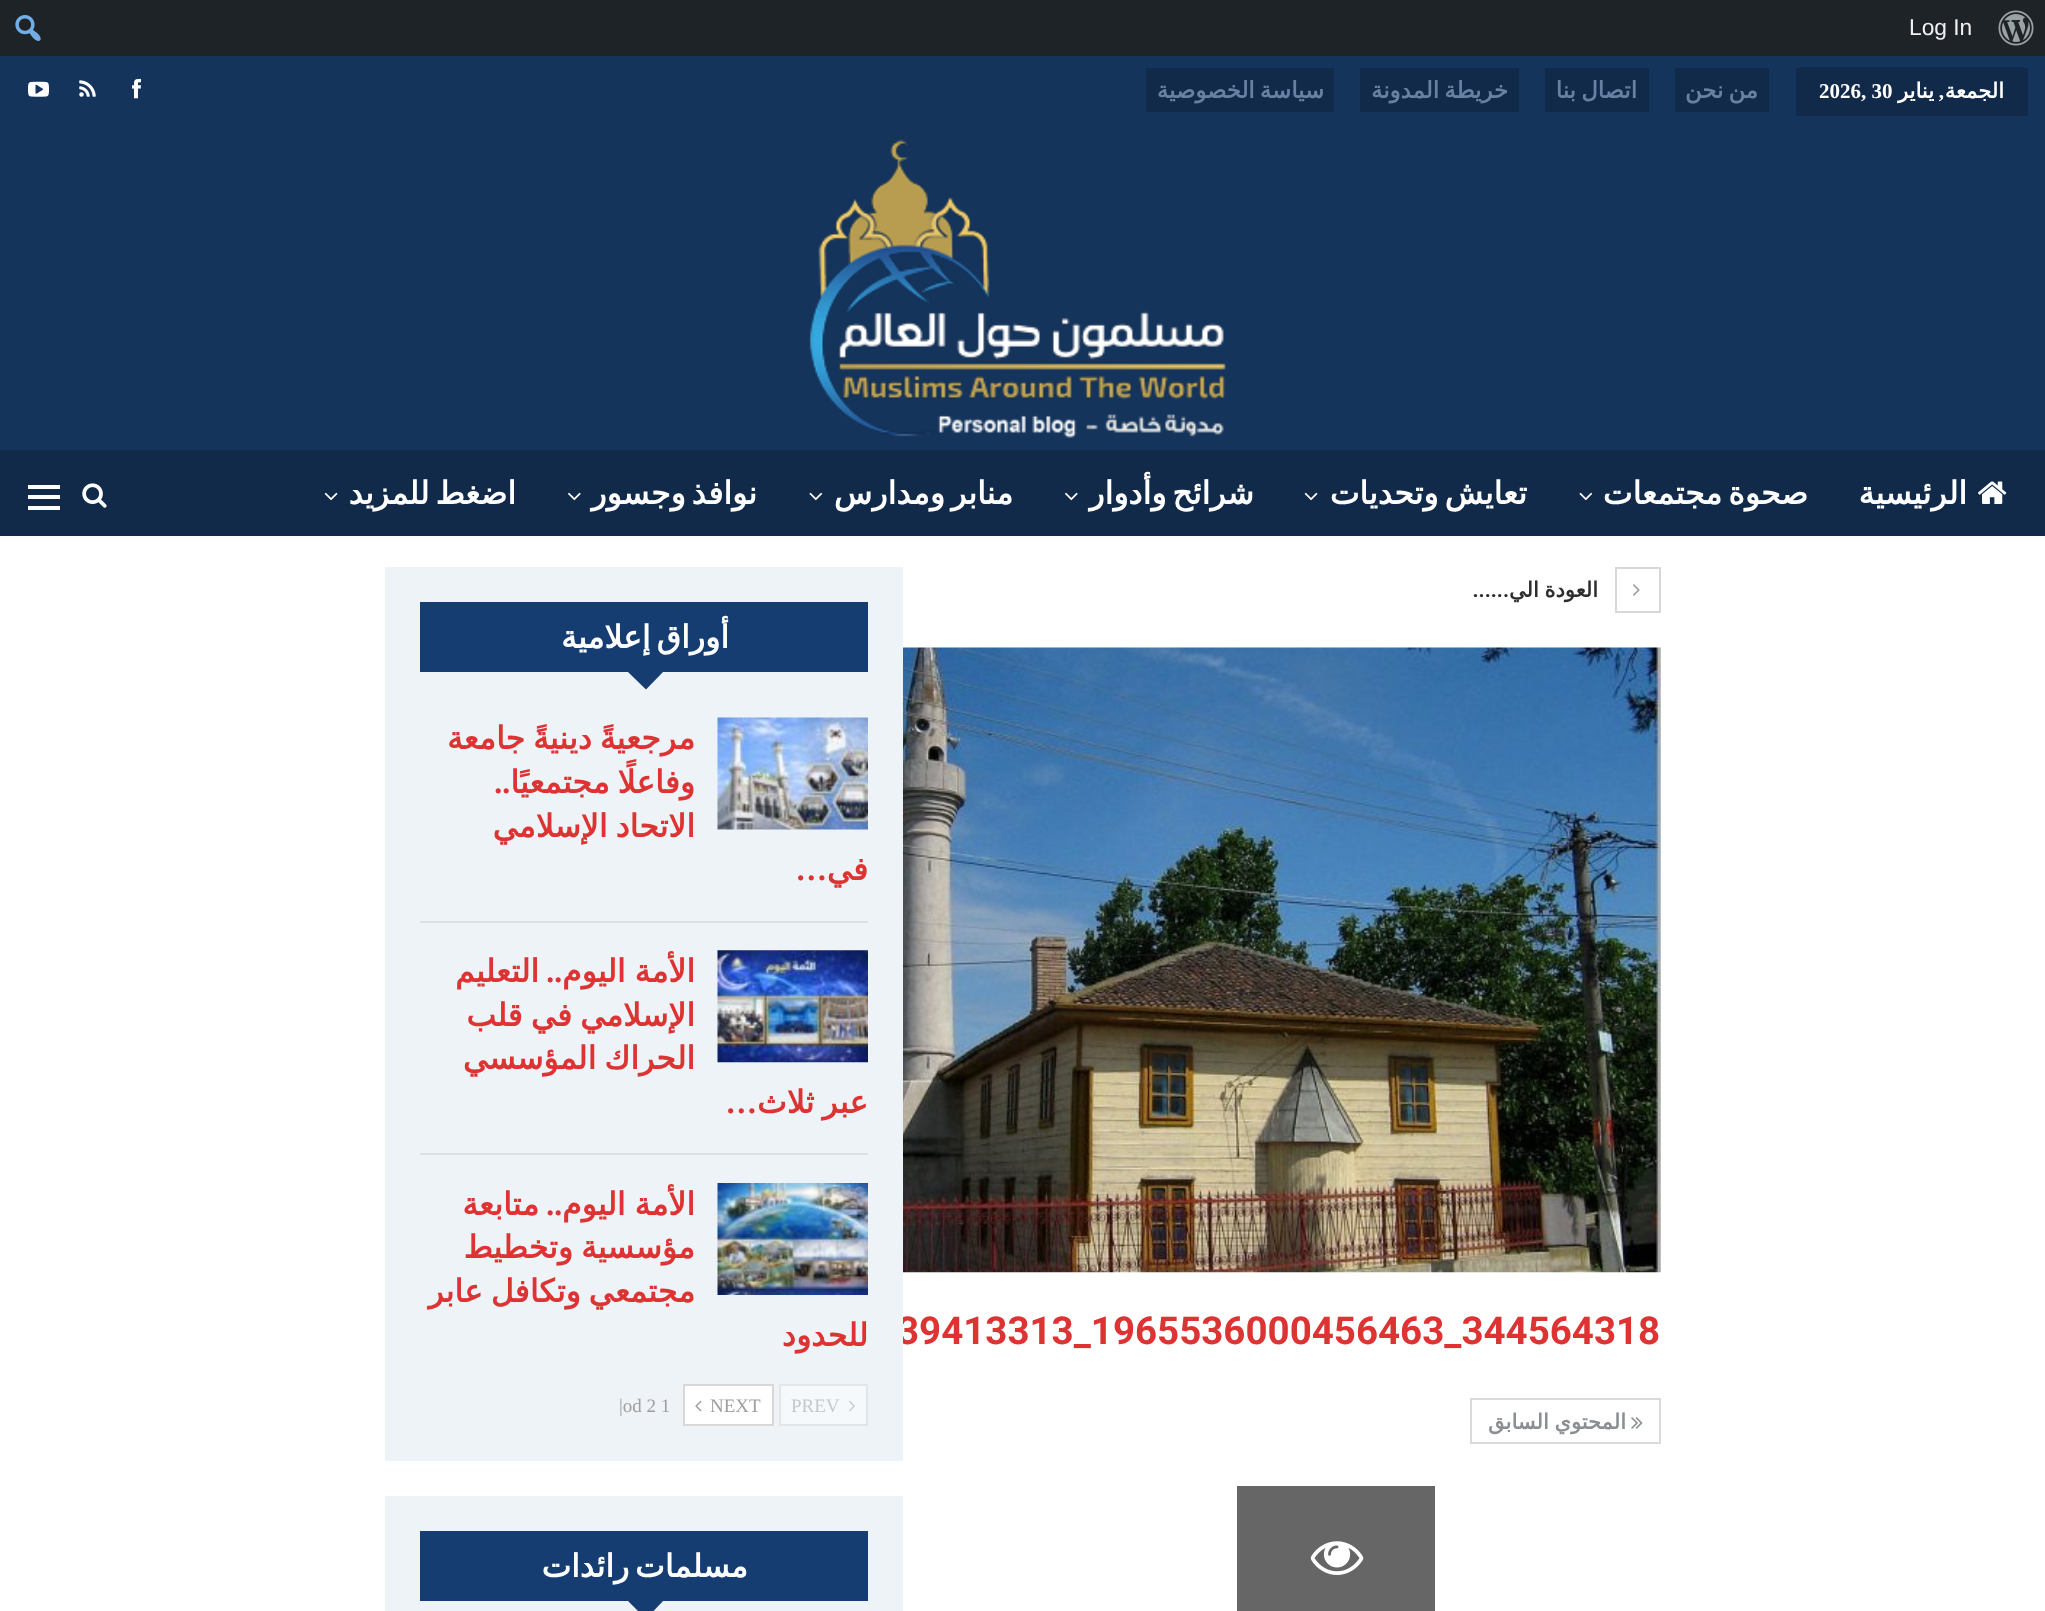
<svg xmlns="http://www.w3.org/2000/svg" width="2045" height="1611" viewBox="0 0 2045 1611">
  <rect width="100%" height="100%" fill="#ffffff"/>
  <rect x="0" y="56" width="2045" height="394" fill="#15345c"/>
  <rect x="0" y="0" width="2045" height="56" fill="#1d2327"/>
  <image x="1998" y="10" width="36" height="36" href="img1.png"/>
  <text x="1909" y="35" font-family="Liberation Sans" font-size="22.75" fill="#f0f0f1">Log In</text>
  <image x="15" y="15" width="26" height="26" href="img2.png"/>
  <rect x="1796" y="68" width="232" height="48" fill="#112a4a"/>
  <rect x="1801" y="67" width="222" height="1" fill="#112a4a"/>
  <text x="2004" y="98" font-family="DejaVu Sans" font-size="21" font-weight="bold" direction="rtl" fill="#ffffff">الجمعة</text>
  <text x="1944" y="98" font-family="Liberation Serif" font-size="21" font-weight="bold" direction="rtl" fill="#ffffff">,</text>
  <text x="1934" y="98" font-family="DejaVu Sans" font-size="21" font-weight="bold" direction="rtl" fill="#ffffff">يناير</text>
  <text x="1819" y="98" font-family="Liberation Serif" font-size="21" font-weight="bold" fill="#ffffff">2026, 30</text>
  <rect x="1675" y="68" width="94" height="44" fill="#112a4a"/>
  <text x="1758" y="98" word-spacing="-2" font-family="DejaVu Sans" font-size="22.75" font-weight="bold" direction="rtl" fill="#6781a3">من نحن</text>
  <rect x="1545" y="68" width="104" height="44" fill="#112a4a"/>
  <text x="1637" y="98" word-spacing="-2" font-family="DejaVu Sans" font-size="22.75" font-weight="bold" direction="rtl" fill="#6781a3">اتصال بنا</text>
  <rect x="1360" y="68" width="159" height="44" fill="#112a4a"/>
  <text x="1508" y="98" word-spacing="-2" font-family="DejaVu Sans" font-size="22.75" font-weight="bold" direction="rtl" fill="#6781a3">خريطة المدونة</text>
  <rect x="1146" y="68" width="188" height="44" fill="#112a4a"/>
  <text x="1324" y="98" word-spacing="-2" font-family="DejaVu Sans" font-size="22.75" font-weight="bold" direction="rtl" fill="#6781a3">سياسة الخصوصية</text>
  <image x="132" y="78" width="9" height="21" href="img3.png"/>
  <image x="79" y="80" width="17" height="17" href="img4.png"/>
  <image x="28" y="81" width="21" height="16" href="img5.png"/>
  <image x="809" y="139" width="417" height="299" href="img6.png"/>
  <rect x="0" y="450" width="2045" height="86" fill="#112a4a"/>
  <image x="1978" y="481" width="29" height="23" href="img7.png"/>
  <text x="1967" y="504" font-family="DejaVu Sans" font-size="31.5" font-weight="bold" direction="rtl" fill="#ffffff">الرئيسية</text>
  <text x="1808" y="504" word-spacing="-4" font-family="DejaVu Sans" font-size="31.5" font-weight="bold" direction="rtl" fill="#ffffff">صحوة مجتمعات</text>
  <image x="1579" y="492" width="14" height="9" href="img8.png"/>
  <text x="1527" y="504" word-spacing="-4" font-family="DejaVu Sans" font-size="31.5" font-weight="bold" direction="rtl" fill="#ffffff">تعايش وتحديات</text>
  <image x="1304" y="492" width="14" height="9" href="img9.png"/>
  <text x="1254" y="504" word-spacing="-4" font-family="DejaVu Sans" font-size="31.5" font-weight="bold" direction="rtl" fill="#ffffff">شرائح وأدوار</text>
  <image x="1065" y="492" width="13" height="9" href="img10.png"/>
  <text x="1013" y="504" word-spacing="-4" font-family="DejaVu Sans" font-size="31.5" font-weight="bold" direction="rtl" fill="#ffffff">منابر ومدارس</text>
  <image x="809" y="492" width="14" height="9" href="img8.png"/>
  <text x="757" y="504" word-spacing="-4" font-family="DejaVu Sans" font-size="31.5" font-weight="bold" direction="rtl" fill="#ffffff">نوافذ وجسور</text>
  <image x="568" y="492" width="13" height="9" href="img10.png"/>
  <text x="516" y="504" word-spacing="-4" font-family="DejaVu Sans" font-size="31.5" font-weight="bold" direction="rtl" fill="#ffffff">اضغط للمزيد</text>
  <image x="324" y="492" width="14" height="9" href="img9.png"/>
  <image x="82" y="483" width="25" height="25" href="img11.png"/>
  <rect x="28" y="495" width="32" height="4" fill="#ffffff"/>
  <rect x="28" y="485" width="32" height="4" fill="#ffffff"/>
  <rect x="28" y="506" width="32" height="4" fill="#ffffff"/>
  <rect x="1616" y="568" width="44" height="44" fill="none" stroke="#d8d8d8" stroke-width="2"/>
  <image x="1633" y="584" width="7" height="12" href="img12.png"/>
  <text x="1598" y="597" word-spacing="-1" font-family="DejaVu Sans" font-size="21" font-weight="bold" direction="rtl" fill="#2d2d2d">العودة الي</text>
  <text x="1509" y="597" font-family="Roboto" font-size="21" font-weight="bold" direction="rtl" fill="#2d2d2d">......</text>
  <image x="903" y="647" width="758" height="626" href="img13.png"/>
  <text x="897" y="1344" font-family="Roboto" font-size="38.5" font-weight="bold" fill="#dd3333">39413313_1965536000456463_344564318</text>
  <rect x="1471" y="1399" width="189" height="44" fill="none" stroke="#dadada" stroke-width="2"/>
  <image x="1631" y="1417" width="12" height="12" href="img14.png"/>
  <text x="1626" y="1429" word-spacing="-1" font-family="DejaVu Sans" font-size="21" font-weight="bold" direction="rtl" fill="#8a8f92">المحتوي السابق</text>
  <rect x="1237" y="1486" width="198" height="125" fill="#666666"/>
  <image x="1310" y="1541" width="54" height="34" href="img15.png"/>
  <rect x="385" y="567" width="518" height="894" fill="#edf3f7"/>
  <rect x="420" y="602" width="448" height="70" fill="#153d72"/>
  <text x="729" y="648" word-spacing="-4" font-family="DejaVu Sans" font-size="31.5" font-weight="bold" direction="rtl" fill="#ffffff">أوراق إعلامية</text>
  <path d="M628 672H663L646 689.5Z" fill="#153d72"/>
  <rect x="420" y="921" width="448" height="2" fill="#dae0e3"/>
  <image x="717" y="717" width="151" height="113" href="img16.png"/>
  <text x="695" y="749" word-spacing="-2" font-family="DejaVu Sans" font-size="31.5" font-weight="bold" direction="rtl" fill="#dd3333">مرجعيةً دينيةً جامعة</text>
  <text x="695" y="793" word-spacing="-2" font-family="DejaVu Sans" font-size="31.5" font-weight="bold" direction="rtl" fill="#dd3333">وفاعلًا مجتمعيًا</text>
  <text x="510" y="793" font-family="Liberation Serif" font-size="31.5" font-weight="bold" direction="rtl" fill="#dd3333">..</text>
  <text x="695" y="837" word-spacing="-2" font-family="DejaVu Sans" font-size="31.5" font-weight="bold" direction="rtl" fill="#dd3333">الاتحاد الإسلامي</text>
  <text x="868" y="880" font-family="DejaVu Sans" font-size="31.5" font-weight="bold" direction="rtl" fill="#dd3333">في</text>
  <text x="827" y="880" font-family="Liberation Serif" font-size="31.5" font-weight="bold" direction="rtl" fill="#dd3333">…</text>
  <rect x="420" y="1153" width="448" height="2" fill="#dae0e3"/>
  <image x="717" y="950" width="151" height="113" href="img17.png"/>
  <text x="695" y="982" word-spacing="-1" font-family="DejaVu Sans" font-size="31.5" font-weight="bold" direction="rtl" fill="#dd3333">الأمة اليوم</text>
  <text x="562" y="982" font-family="Liberation Serif" font-size="31.5" font-weight="bold" direction="rtl" fill="#dd3333">..</text>
  <text x="539" y="982" font-family="DejaVu Sans" font-size="31.5" font-weight="bold" direction="rtl" fill="#dd3333">التعليم</text>
  <text x="695" y="1026" word-spacing="-2" font-family="DejaVu Sans" font-size="31.5" font-weight="bold" direction="rtl" fill="#dd3333">الإسلامي في قلب</text>
  <text x="695" y="1069" word-spacing="-2" font-family="DejaVu Sans" font-size="31.5" font-weight="bold" direction="rtl" fill="#dd3333">الحراك المؤسسي</text>
  <text x="868" y="1113" word-spacing="-2" font-family="DejaVu Sans" font-size="31.5" font-weight="bold" direction="rtl" fill="#dd3333">عبر ثلاث</text>
  <text x="757" y="1113" font-family="Liberation Serif" font-size="31.5" font-weight="bold" direction="rtl" fill="#dd3333">…</text>
  <image x="717" y="1183" width="151" height="112" href="img18.png"/>
  <text x="695" y="1215" word-spacing="-1" font-family="DejaVu Sans" font-size="31.5" font-weight="bold" direction="rtl" fill="#dd3333">الأمة اليوم</text>
  <text x="562" y="1215" font-family="Liberation Serif" font-size="31.5" font-weight="bold" direction="rtl" fill="#dd3333">..</text>
  <text x="539" y="1215" font-family="DejaVu Sans" font-size="31.5" font-weight="bold" direction="rtl" fill="#dd3333">متابعة</text>
  <text x="695" y="1258" word-spacing="-2" font-family="DejaVu Sans" font-size="31.5" font-weight="bold" direction="rtl" fill="#dd3333">مؤسسية وتخطيط</text>
  <text x="695" y="1302" word-spacing="-2" font-family="DejaVu Sans" font-size="31.5" font-weight="bold" direction="rtl" fill="#dd3333">مجتمعي وتكافل عابر</text>
  <text x="868" y="1346" font-family="DejaVu Sans" font-size="31.5" font-weight="bold" direction="rtl" fill="#dd3333">للحدود</text>
  <rect x="780" y="1385" width="87" height="40" fill="#f6f9fb" stroke="#e3e6e8" stroke-width="2"/>
  <image x="849" y="1400" width="6" height="12" href="img19.png"/>
  <text x="791" y="1412" font-family="Liberation Serif" font-size="19" fill="#c6c9cb">PREV</text>
  <rect x="684" y="1385" width="89" height="40" fill="#ffffff" stroke="#d8d8d8" stroke-width="2"/>
  <text x="710" y="1412" font-family="Liberation Serif" font-size="19" fill="#9e9e9e">NEXT</text>
  <image x="695" y="1400" width="7" height="12" href="img20.png"/>
  <text x="619" y="1412" font-family="Liberation Serif" font-size="19" fill="#9e9e9e">|od 2 1</text>
  <rect x="385" y="1496" width="518" height="115" fill="#edf3f7"/>
  <rect x="420" y="1531" width="448" height="70" fill="#153d72"/>
  <text x="748" y="1577" word-spacing="-4" font-family="DejaVu Sans" font-size="31.5" font-weight="bold" direction="rtl" fill="#ffffff">مسلمات رائدات</text>
  <path d="M628 1601H663L646 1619Z" fill="#153d72"/>
</svg>
